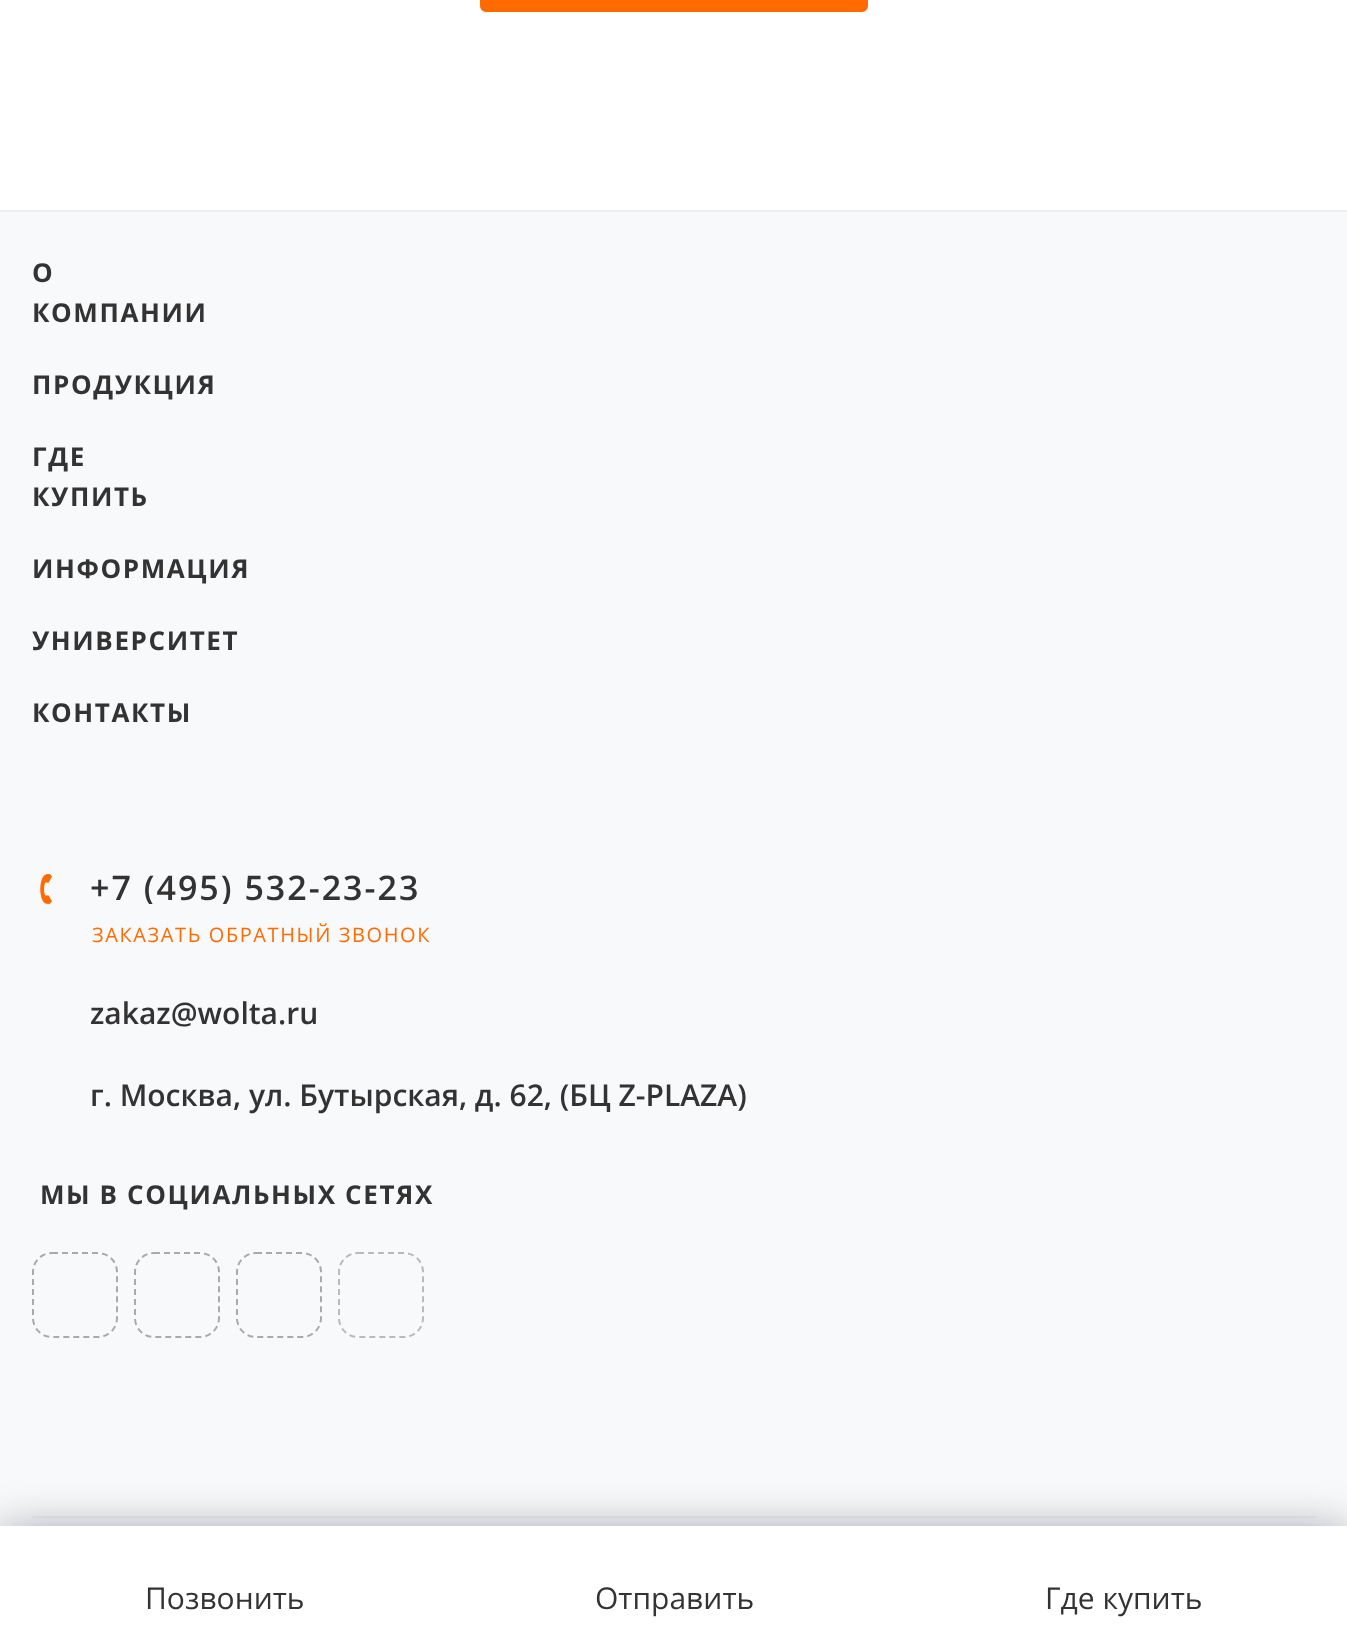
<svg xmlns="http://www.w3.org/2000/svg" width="1347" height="1625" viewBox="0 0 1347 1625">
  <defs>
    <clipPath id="clip1"><rect x="32" y="870" width="414" height="34"/></clipPath>
    <filter id="blur1" x="-50%" y="-200%" width="200%" height="500%"><feGaussianBlur stdDeviation="25"/></filter>
  </defs>
  <rect width="100%" height="100%" fill="#ffffff"/>
  <rect x="481" y="-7" width="386" height="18" rx="5" fill="#ff6b00" stroke="#ff6b00" stroke-width="2"/>
  <rect x="0" y="212" width="1347" height="1314" fill="#f8f9fb"/>
  <rect x="0" y="210" width="1347" height="2" fill="#eeeeee"/>
  <text x="32" y="282" font-family="Open Sans" font-size="26" font-weight="bold" letter-spacing="1.6" fill="#333333">О</text>
  <text x="32" y="322" font-family="Open Sans" font-size="26" font-weight="bold" letter-spacing="1.6" fill="#333333">КОМПАНИИ</text>
  <text x="32" y="394" font-family="Open Sans" font-size="26" font-weight="bold" letter-spacing="1.6" fill="#333333">ПРОДУКЦИЯ</text>
  <text x="32" y="466" font-family="Open Sans" font-size="26" font-weight="bold" letter-spacing="1.6" fill="#333333">ГДЕ</text>
  <text x="32" y="506" font-family="Open Sans" font-size="26" font-weight="bold" letter-spacing="1.6" fill="#333333">КУПИТЬ</text>
  <text x="32" y="578" font-family="Open Sans" font-size="26" font-weight="bold" letter-spacing="1.6" fill="#333333">ИНФОРМАЦИЯ</text>
  <text x="32" y="650" font-family="Open Sans" font-size="26" font-weight="bold" letter-spacing="1.6" fill="#333333">УНИВЕРСИТЕТ</text>
  <text x="32" y="722" font-family="Open Sans" font-size="26" font-weight="bold" letter-spacing="1.6" fill="#333333">КОНТАКТЫ</text>
  <image x="40" y="874" width="12" height="30" href="img1.png"/>
  <g clip-path="url(#clip1)">
    <text x="90" y="900" font-family="Open Sans" font-size="34" font-weight="600" letter-spacing="2" fill="#333333">+7 (495) 532-23-23</text>
  </g>
  <text x="92" y="942" font-family="Open Sans" font-size="20" letter-spacing="1.6" fill="#ff6b00">ЗАКАЗАТЬ ОБРАТНЫЙ ЗВОНОК</text>
  <text x="90" y="1024" font-family="Open Sans" font-size="30" font-weight="600" fill="#333333">zakaz@wolta.ru</text>
  <text x="90" y="1106" font-family="Open Sans" font-size="30" font-weight="600" fill="#333333">г. Москва, ул. Бутырская, д. 62, (БЦ Z-PLAZA)</text>
  <text x="40" y="1204" font-family="Open Sans" font-size="26" font-weight="bold" letter-spacing="1.6" fill="#333333">МЫ В СОЦИАЛЬНЫХ СЕТЯХ</text>
  <path d="M52 1253H98C108.5 1253 117 1261.5 117 1272V1318C117 1328.5 108.5 1337 98 1337H52C41.5 1337 33 1328.5 33 1318V1272C33 1261.5 41.5 1253 52 1253Z" fill="none" stroke="#aaaaaa" stroke-width="2" stroke-dasharray="6 4"/>
  <path d="M154 1253H200C210.5 1253 219 1261.5 219 1272V1318C219 1328.5 210.5 1337 200 1337H154C143.5 1337 135 1328.5 135 1318V1272C135 1261.5 143.5 1253 154 1253Z" fill="none" stroke="#aaaaaa" stroke-width="2" stroke-dasharray="6 4"/>
  <path d="M256 1253H302C312.5 1253 321 1261.5 321 1272V1318C321 1328.5 312.5 1337 302 1337H256C245.5 1337 237 1328.5 237 1318V1272C237 1261.5 245.5 1253 256 1253Z" fill="none" stroke="#aaaaaa" stroke-width="2" stroke-dasharray="6 4"/>
  <path d="M358 1253H404C414.5 1253 423 1261.5 423 1272V1318C423 1328.5 414.5 1337 404 1337H358C347.5 1337 339 1328.5 339 1318V1272C339 1261.5 347.5 1253 358 1253Z" fill="none" stroke="#bababa" stroke-width="2" stroke-dasharray="6 4"/>
  <rect x="32" y="1516" width="1284" height="2" fill="#f0f1f5"/>
  <rect x="0" y="1536" width="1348" height="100" fill="#121926" fill-opacity="0.48" filter="url(#blur1)"/>
  <rect x="0" y="1526" width="1347" height="99" fill="#ffffff"/>
  <text x="145" y="1609" font-family="Open Sans" font-size="30" fill="#333333">Позвонить</text>
  <text x="595" y="1609" font-family="Open Sans" font-size="30" fill="#333333">Отправить</text>
  <text x="1045" y="1609" font-family="Open Sans" font-size="30" fill="#333333">Где купить</text>
</svg>
